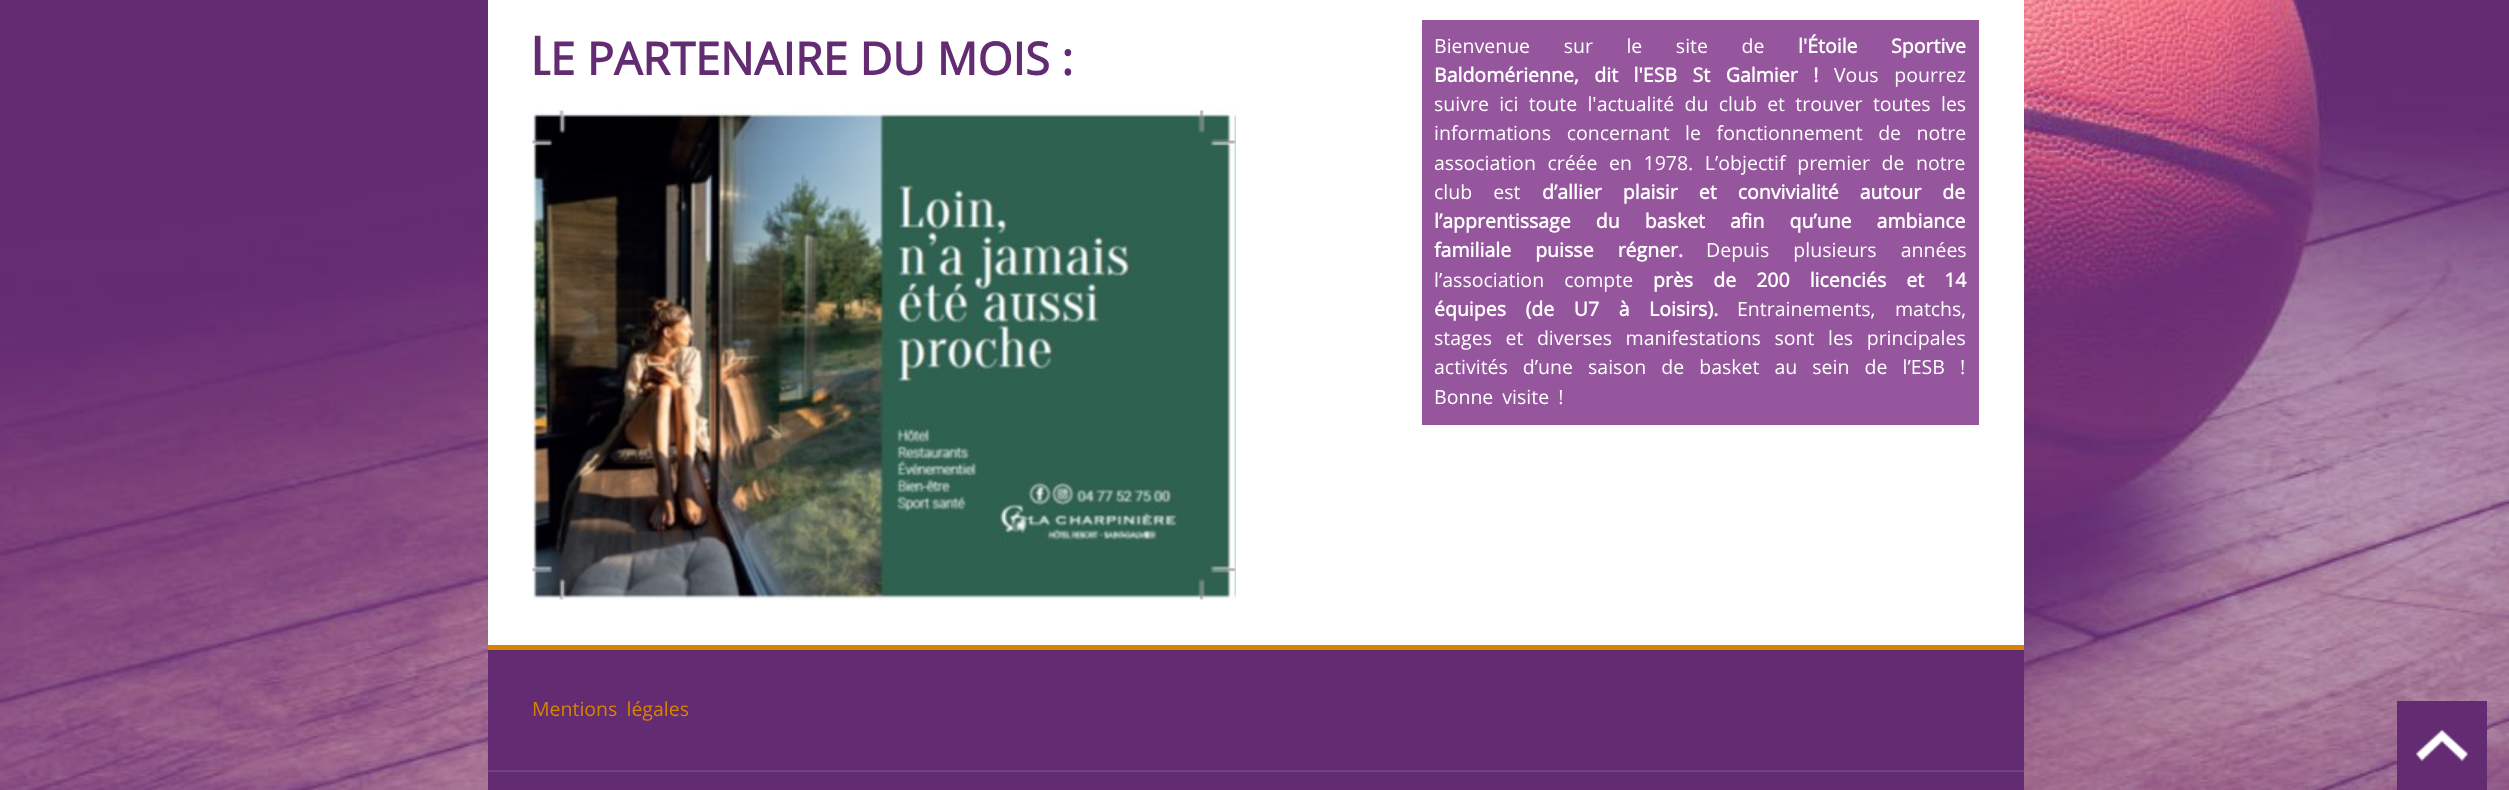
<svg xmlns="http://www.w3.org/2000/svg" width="2509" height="790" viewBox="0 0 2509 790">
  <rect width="100%" height="100%" fill="#ffffff"/>
  <image x="0" y="0" width="2509" height="790" href="img1.png"/>
  <rect x="488" y="0" width="1536" height="645" fill="#ffffff"/>
  <text x="532" y="75" font-family="Oswald" font-size="45" fill="#632b72">L</text>
  <text x="550" y="75" font-family="Open Sans" font-size="45" font-weight="bold" fill="#632b72">E PARTENAIRE DU MOIS :</text>
  <image x="532" y="110" width="704" height="490" href="img2.png"/>
  <rect x="1422" y="20" width="557" height="405" fill="#95569e"/>
  <text x="1434" y="53" word-spacing="28.5" font-family="Open Sans" font-size="19.5" fill="#ffffff">Bienvenue sur le site de</text>
  <text x="1798" y="53" word-spacing="28.5" font-family="Open Sans" font-size="19.5" font-weight="bold" fill="#ffffff">l'Étoile Sportive</text>
  <text x="1434" y="82" word-spacing="10.5" font-family="Open Sans" font-size="19.5" font-weight="bold" fill="#ffffff">Baldomérienne, dit l'ESB St Galmier !</text>
  <text x="1834" y="82" word-spacing="10.5" font-family="Open Sans" font-size="19.5" fill="#ffffff">Vous pourrez</text>
  <text x="1434" y="111" word-spacing="5.25" font-family="Open Sans" font-size="19.5" fill="#ffffff">suivre ici toute l'actualité du club et trouver toutes les</text>
  <text x="1434" y="140" word-spacing="10.5" font-family="Open Sans" font-size="19.5" fill="#ffffff">informations concernant le fonctionnement de notre</text>
  <text x="1434" y="170" word-spacing="6.5" font-family="Open Sans" font-size="19.5" fill="#ffffff">association créée en 1978. L’objectif premier de notre</text>
  <text x="1434" y="199" word-spacing="16" font-family="Open Sans" font-size="19.5" fill="#ffffff">club est</text>
  <text x="1542" y="199" word-spacing="16" font-family="Open Sans" font-size="19.5" font-weight="bold" fill="#ffffff">d’allier plaisir et convivialité autour de</text>
  <text x="1434" y="228" word-spacing="20" font-family="Open Sans" font-size="19.5" font-weight="bold" fill="#ffffff">l’apprentissage du basket afin qu’une ambiance</text>
  <text x="1434" y="257" word-spacing="19" font-family="Open Sans" font-size="19.5" font-weight="bold" fill="#ffffff">familiale puisse régner.</text>
  <text x="1706" y="257" word-spacing="19" font-family="Open Sans" font-size="19.5" fill="#ffffff">Depuis plusieurs années</text>
  <text x="1434" y="287" word-spacing="15" font-family="Open Sans" font-size="19.5" fill="#ffffff">l’association compte</text>
  <text x="1653" y="287" word-spacing="15" font-family="Open Sans" font-size="19.5" font-weight="bold" fill="#ffffff">près de 200 licenciés et 14</text>
  <text x="1434" y="316" word-spacing="14.5" font-family="Open Sans" font-size="19.5" font-weight="bold" fill="#ffffff">équipes (de U7 à Loisirs).</text>
  <text x="1737" y="316" word-spacing="14.5" font-family="Open Sans" font-size="19.5" fill="#ffffff">Entrainements, matchs,</text>
  <text x="1434" y="345" word-spacing="8.5" font-family="Open Sans" font-size="19.5" fill="#ffffff">stages et diverses manifestations sont les principales</text>
  <text x="1434" y="374" word-spacing="10" font-family="Open Sans" font-size="19.5" fill="#ffffff">activités d’une saison de basket au sein de l’ESB !</text>
  <text x="1434" y="404" word-spacing="4" font-family="Open Sans" font-size="19.5" fill="#ffffff">Bonne visite !</text>
  <rect x="488" y="650" width="1536" height="140" fill="#632b72"/>
  <rect x="488" y="645" width="1536" height="5" fill="#d78300"/>
  <rect x="488" y="770" width="1536" height="2" fill="#734080"/>
  <text x="532" y="716" word-spacing="4" font-family="Open Sans" font-size="19.5" fill="#d78300">Mentions légales</text>
  <rect x="2397" y="701" width="90" height="89" fill="#632b72"/>
  <image x="2416" y="730" width="52" height="32" href="img3.png"/>
</svg>
